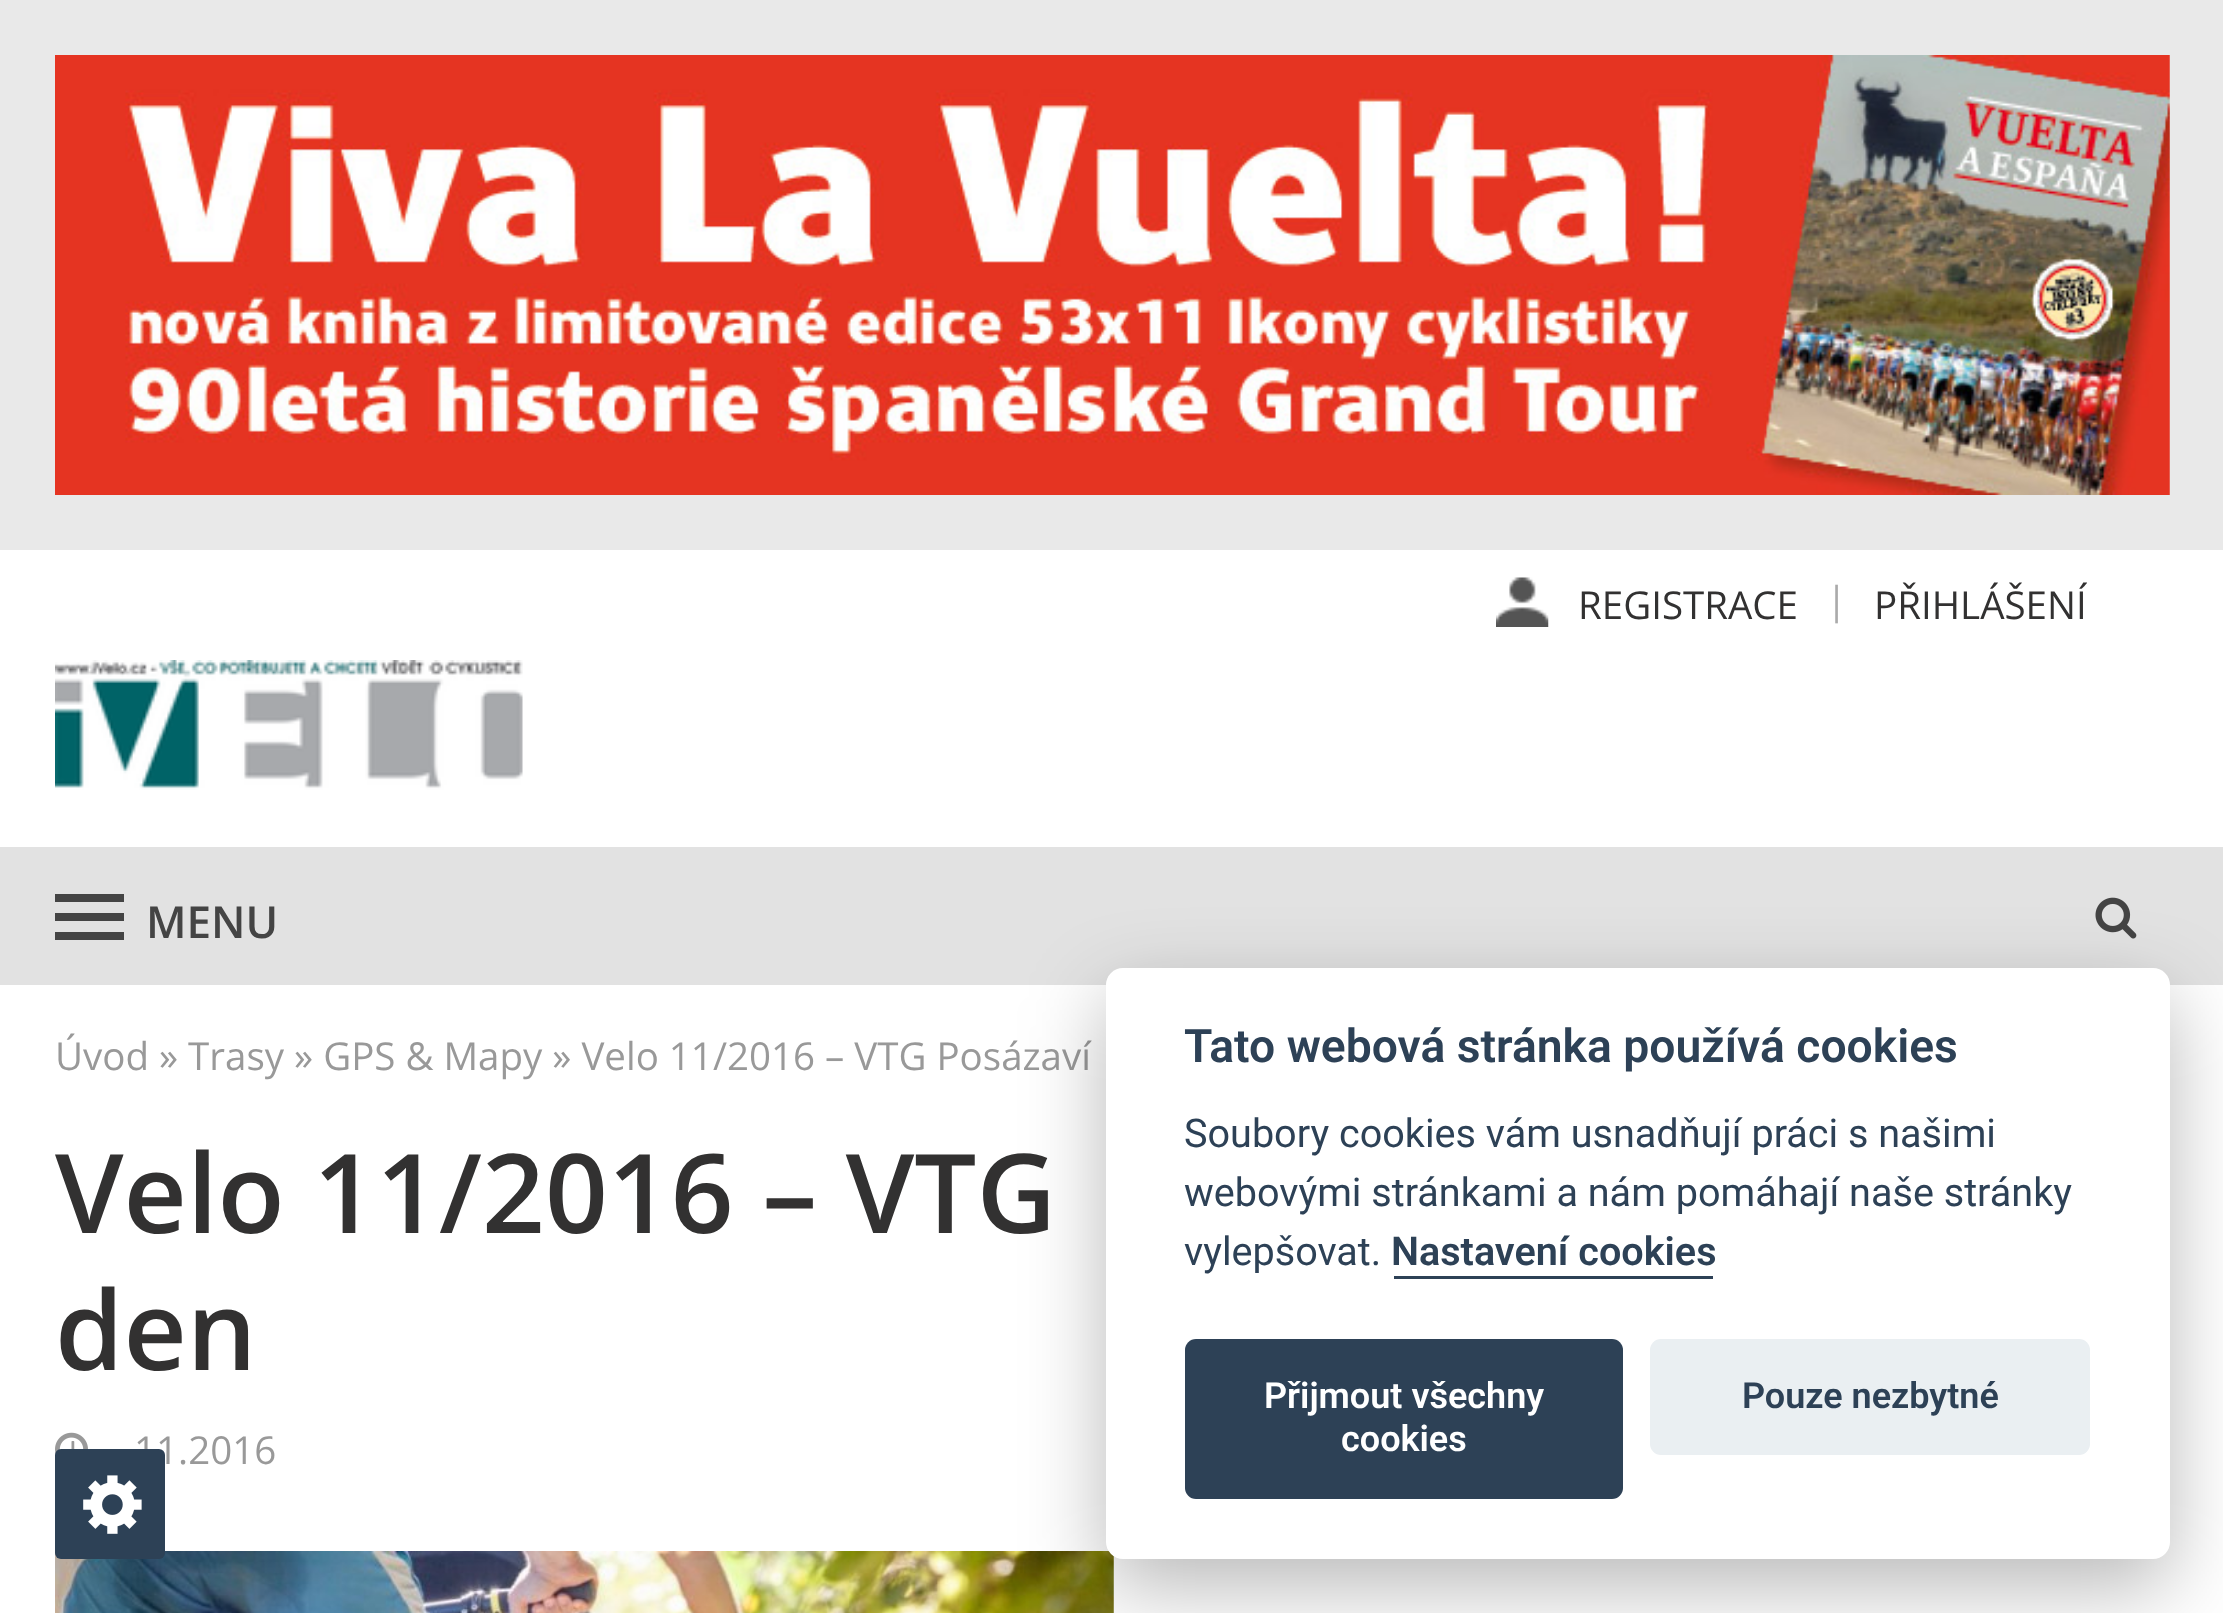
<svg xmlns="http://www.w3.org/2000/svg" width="2223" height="1613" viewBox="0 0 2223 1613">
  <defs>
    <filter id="blur1" x="-50%" y="-200%" width="200%" height="500%"><feGaussianBlur stdDeviation="41"/></filter>
  </defs>
  <rect width="100%" height="100%" fill="#e9e9e9"/>
  <image x="55" y="55" width="2115" height="440" href="img1.png"/>
  <rect x="0" y="550" width="2223" height="297" fill="#ffffff"/>
  <image x="1496" y="577" width="53" height="50" href="img2.png"/>
  <text x="1578" y="619" font-family="Open Sans" font-size="38.5" fill="#323131">REGISTRACE</text>
  <text x="1826" y="614" font-family="Open Sans" font-size="38.5" fill="#aaaaaa">|</text>
  <text x="1874" y="619" font-family="Open Sans" font-size="38.5" fill="#323131">PŘIHLÁŠENÍ</text>
  <image x="55" y="660" width="468" height="130" href="img3.png"/>
  <rect x="0" y="847" width="2223" height="138" fill="#e2e2e2"/>
  <rect x="55" y="894" width="69" height="8" fill="#444444"/>
  <rect x="55" y="913" width="69" height="8" fill="#444444"/>
  <rect x="55" y="932" width="69" height="8" fill="#444444"/>
  <text x="146" y="938" font-family="Open Sans" font-size="44" font-weight="600" fill="#444444">MENU</text>
  <image x="2095" y="897" width="42" height="42" href="img4.png"/>
  <rect x="0" y="985" width="2223" height="628" fill="#ffffff"/>
  <text x="55" y="1070" font-family="Open Sans" font-size="38.5" fill="#999999">Úvod » Trasy » GPS &amp; Mapy » Velo 11/2016 – VTG Posázaví</text>
  <text x="55" y="1233" font-family="Open Sans" font-size="110" font-weight="600" fill="#323131">Velo 11/2016 – VTG</text>
  <text x="55" y="1370" font-family="Open Sans" font-size="110" font-weight="600" fill="#323131">den</text>
  <image x="55" y="1432" width="33" height="23" href="img5.png"/>
  <text x="134" y="1464" font-family="Open Sans" font-size="38.5" fill="#999999">11.2016</text>
  <image x="55" y="1551" width="1059" height="62" href="img6.png"/>
  <rect x="1106" y="996" width="1064" height="591" rx="17" fill="#020203" fill-opacity="0.28" filter="url(#blur1)"/>
  <rect x="1106" y="968" width="1064" height="591" rx="17" fill="#ffffff"/>
  <text x="1184" y="1062" font-family="Roboto" font-size="46.25" font-weight="600" fill="#2d4156">Tato webová stránka používá cookies</text>
  <text x="1184" y="1147" font-family="Roboto" font-size="39.6" fill="#2d4156">Soubory cookies vám usnadňují práci s našimi</text>
  <text x="1184" y="1206" font-family="Roboto" font-size="39.6" fill="#2d4156">webovými stránkami a nám pomáhají naše stránky</text>
  <text x="1184" y="1265" font-family="Roboto" font-size="39.6" fill="#2d4156">vylepšovat.</text>
  <text x="1391" y="1265" font-family="Roboto" font-size="39.6" font-weight="600" fill="#2d4156">Nastavení cookies</text>
  <rect x="1394" y="1276" width="319" height="3" fill="#2d4156"/>
  <rect x="1185" y="1339" width="438" height="160" rx="11" fill="#2d4156"/>
  <text x="1264" y="1408" font-family="Roboto" font-size="36" font-weight="600" fill="#ffffff">Přijmout všechny</text>
  <text x="1341" y="1451" font-family="Roboto" font-size="36" font-weight="600" fill="#ffffff">cookies</text>
  <rect x="1650" y="1339" width="440" height="116" rx="11" fill="#eaeff2"/>
  <text x="1742" y="1408" font-family="Roboto" font-size="36" font-weight="600" fill="#2d4156">Pouze nezbytné</text>
  <rect x="55" y="1449" width="110" height="110" rx="6" fill="#2d4156"/>
  <image x="83" y="1475" width="59" height="59" href="img7.png"/>
</svg>
